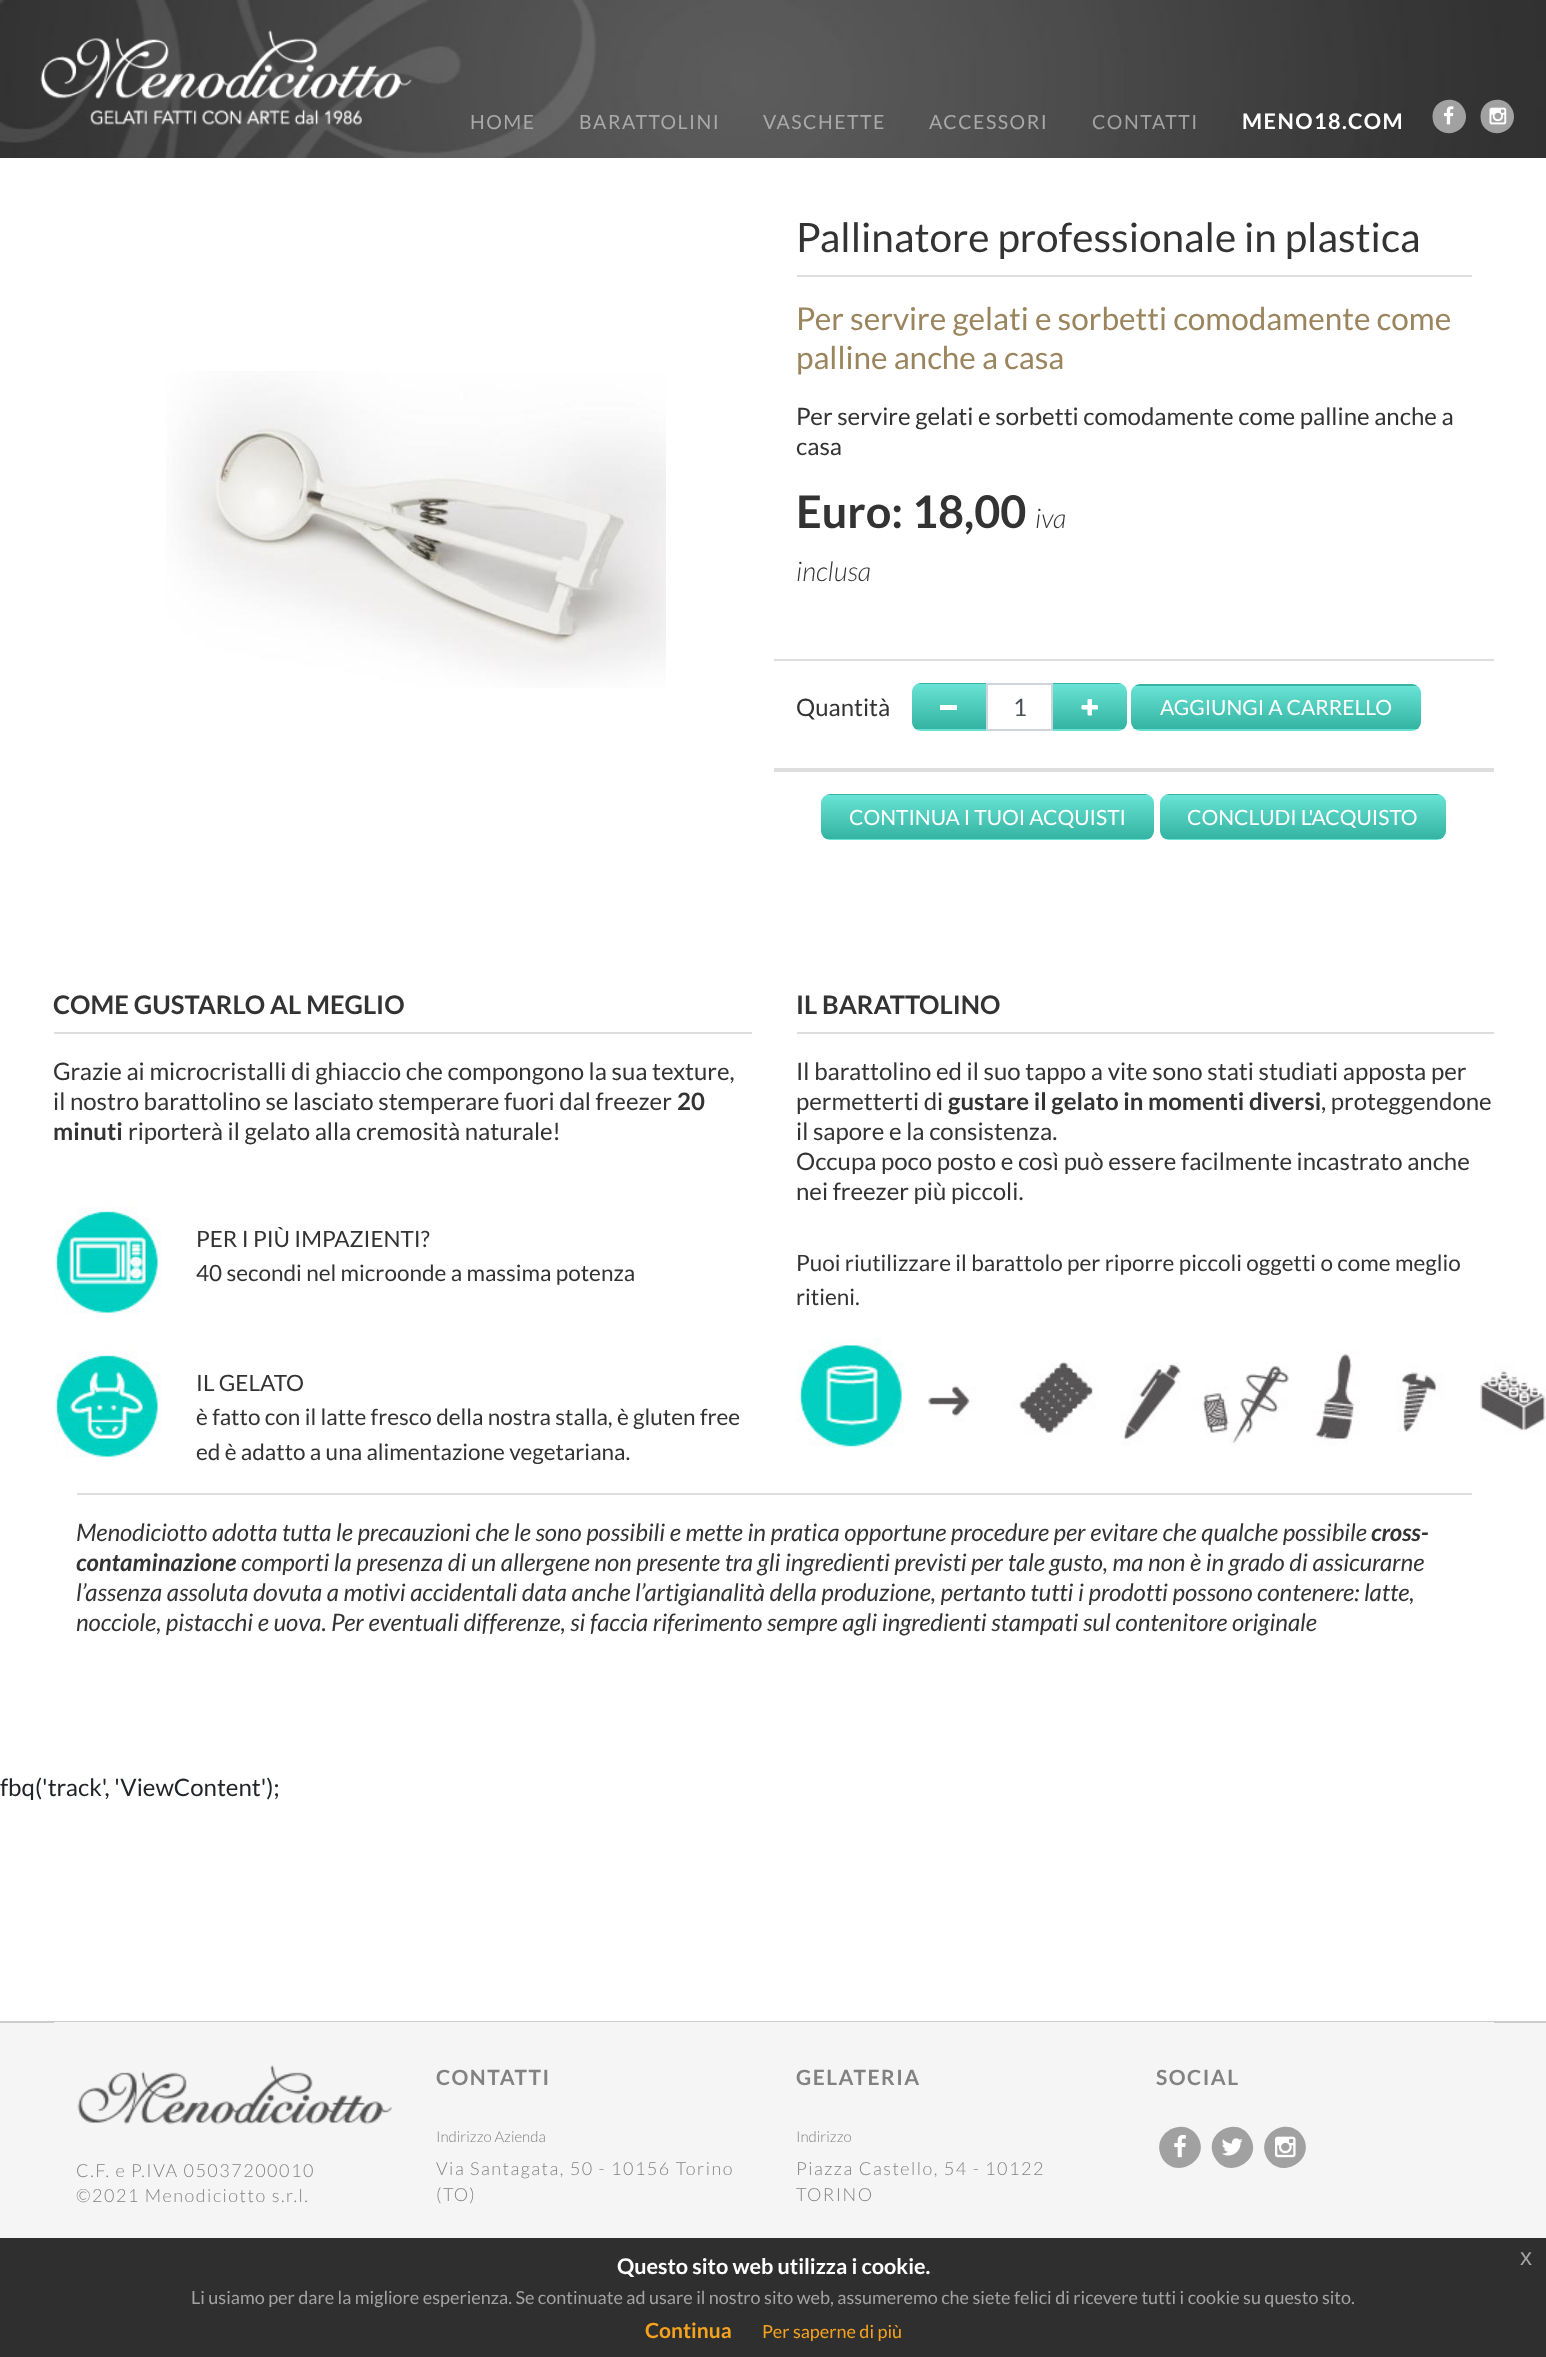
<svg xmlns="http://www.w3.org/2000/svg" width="1546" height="2357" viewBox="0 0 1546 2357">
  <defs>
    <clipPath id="clip1"><path d="M921 683H986V731H921C916 731 912 727 912 722V692C912 687 916 683 921 683Z"/></clipPath>
    <linearGradient id="g1" gradientUnits="userSpaceOnUse" x1="949" y1="639" x2="949" y2="684"><stop offset="0" stop-color="#68e3d5"/><stop offset="1" stop-color="#34b3a2"/></linearGradient>
    <linearGradient id="g2" gradientUnits="userSpaceOnUse" x1="949" y1="684" x2="949" y2="729"><stop offset="0" stop-color="#68e3d5"/><stop offset="1" stop-color="#34b3a2"/></linearGradient>
    <linearGradient id="g3" gradientUnits="userSpaceOnUse" x1="949" y1="729" x2="949" y2="774"><stop offset="0" stop-color="#68e3d5"/><stop offset="1" stop-color="#34b3a2"/></linearGradient>
    <clipPath id="clip2"><path d="M1053 683H1118C1123 683 1127 687 1127 692V722C1127 727 1123 731 1118 731H1053Z"/></clipPath>
    <linearGradient id="g4" gradientUnits="userSpaceOnUse" x1="1090" y1="639" x2="1090" y2="684"><stop offset="0" stop-color="#68e3d5"/><stop offset="1" stop-color="#34b3a2"/></linearGradient>
    <linearGradient id="g5" gradientUnits="userSpaceOnUse" x1="1090" y1="684" x2="1090" y2="729"><stop offset="0" stop-color="#68e3d5"/><stop offset="1" stop-color="#34b3a2"/></linearGradient>
    <linearGradient id="g6" gradientUnits="userSpaceOnUse" x1="1090" y1="729" x2="1090" y2="774"><stop offset="0" stop-color="#68e3d5"/><stop offset="1" stop-color="#34b3a2"/></linearGradient>
    <clipPath id="clip3"><rect x="1131" y="684" width="290" height="47" rx="9"/></clipPath>
    <linearGradient id="g7" gradientUnits="userSpaceOnUse" x1="1276" y1="642" x2="1276" y2="686"><stop offset="0" stop-color="#68e3d5"/><stop offset="1" stop-color="#34b3a2"/></linearGradient>
    <linearGradient id="g8" gradientUnits="userSpaceOnUse" x1="1276" y1="686" x2="1276" y2="729"><stop offset="0" stop-color="#68e3d5"/><stop offset="1" stop-color="#34b3a2"/></linearGradient>
    <linearGradient id="g9" gradientUnits="userSpaceOnUse" x1="1276" y1="729" x2="1276" y2="773"><stop offset="0" stop-color="#68e3d5"/><stop offset="1" stop-color="#34b3a2"/></linearGradient>
    <clipPath id="clip4"><rect x="821" y="794" width="333" height="46" rx="9"/></clipPath>
    <linearGradient id="g10" gradientUnits="userSpaceOnUse" x1="987" y1="752" x2="987" y2="795"><stop offset="0" stop-color="#68e3d5"/><stop offset="1" stop-color="#34b3a2"/></linearGradient>
    <linearGradient id="g11" gradientUnits="userSpaceOnUse" x1="987" y1="795" x2="987" y2="839"><stop offset="0" stop-color="#68e3d5"/><stop offset="1" stop-color="#34b3a2"/></linearGradient>
    <linearGradient id="g12" gradientUnits="userSpaceOnUse" x1="987" y1="839" x2="987" y2="882"><stop offset="0" stop-color="#68e3d5"/><stop offset="1" stop-color="#34b3a2"/></linearGradient>
    <clipPath id="clip5"><rect x="1160" y="794" width="286" height="46" rx="9"/></clipPath>
    <linearGradient id="g13" gradientUnits="userSpaceOnUse" x1="1303" y1="752" x2="1303" y2="795"><stop offset="0" stop-color="#68e3d5"/><stop offset="1" stop-color="#34b3a2"/></linearGradient>
    <linearGradient id="g14" gradientUnits="userSpaceOnUse" x1="1303" y1="795" x2="1303" y2="839"><stop offset="0" stop-color="#68e3d5"/><stop offset="1" stop-color="#34b3a2"/></linearGradient>
    <linearGradient id="g15" gradientUnits="userSpaceOnUse" x1="1303" y1="839" x2="1303" y2="882"><stop offset="0" stop-color="#68e3d5"/><stop offset="1" stop-color="#34b3a2"/></linearGradient>
  </defs>
  <rect width="100%" height="100%" fill="#ffffff"/>
  <image x="0" y="0" width="1546" height="158" href="img1.png"/>
  <image x="40" y="30" width="372" height="96" href="img2.png"/>
  <text x="470" y="129" font-family="Lato" font-size="19.5" letter-spacing="1.5" fill="#a9a9a9">HOME</text>
  <text x="579" y="129" font-family="Lato" font-size="19.5" letter-spacing="1.5" fill="#a9a9a9">BARATTOLINI</text>
  <text x="763" y="129" font-family="Lato" font-size="19.5" letter-spacing="1.5" fill="#a9a9a9">VASCHETTE</text>
  <text x="929" y="129" font-family="Lato" font-size="19.5" letter-spacing="1.5" fill="#a9a9a9">ACCESSORI</text>
  <text x="1092" y="129" font-family="Lato" font-size="19.5" letter-spacing="1.5" fill="#a3a3a3">CONTATTI</text>
  <text x="1242" y="129" font-family="Lato" font-size="21.6" font-weight="bold" letter-spacing="1.5" fill="#ffffff">MENO18.COM</text>
  <path d="M1463.5 108C1465.5 111 1466 114.5 1466 117.5C1465 134 1443 139 1434.5 125C1433 122 1432.5 119 1432.5 115.5C1433.5 99 1455.5 94 1463.5 108Z" fill="#a1a1a1"/>
  <image x="1444" y="106" width="10" height="19" href="img3.png"/>
  <path d="M1511.5 108C1513.5 111 1514 114.5 1514 117.5C1513 134 1491 139 1482.5 125C1481 122 1480.5 119 1480.5 115.5C1481.5 99 1503.5 94 1511.5 108Z" fill="#a1a1a1"/>
  <image x="1489" y="107" width="18" height="18" href="img4.png"/>
  <image x="166" y="371" width="500" height="317" href="img5.png"/>
  <text x="796" y="252" font-family="Lato" font-size="40.5" fill="#333333">Pallinatore professionale in plastica</text>
  <rect x="797" y="275" width="675" height="2" fill="#dedede"/>
  <text x="796" y="330" font-family="Lato" font-size="31.5" fill="#9b855e">Per servire gelati e sorbetti comodamente come</text>
  <text x="796" y="369" font-family="Lato" font-size="31.5" fill="#9b855e">palline anche a casa</text>
  <text x="796" y="425" font-family="Lato" font-size="24" fill="#333333">Per servire gelati e sorbetti comodamente come palline anche a</text>
  <text x="796" y="455" font-family="Lato" font-size="24" fill="#333333">casa</text>
  <text x="796" y="528" font-family="Lato" font-size="45" font-weight="bold" fill="#333333">Euro: 18,00</text>
  <text x="1035" y="528" font-family="Lato" font-size="27" font-weight="300" font-style="italic" fill="#333333">iva</text>
  <text x="796" y="581" font-family="Lato" font-size="27" font-weight="300" font-style="italic" fill="#333333">inclusa</text>
  <rect x="774" y="659" width="720" height="2" fill="#dedede"/>
  <rect x="774" y="768" width="720" height="4" fill="#dedede"/>
  <text x="796" y="716" font-family="Lato" font-size="24" fill="#333333">Quantità</text>
  <g clip-path="url(#clip1)">
    <rect x="912" y="683" width="74" height="1" fill="url(#g1)"/>
    <rect x="912" y="684" width="74" height="45" fill="url(#g2)"/>
    <rect x="912" y="729" width="74" height="2" fill="url(#g3)"/>
  </g>
  <rect x="940" y="705" width="17" height="5" fill="#ffffff"/>
  <rect x="987" y="684" width="65" height="46" fill="none" stroke="#ced4da" stroke-width="2"/>
  <text x="1013" y="716" font-family="Lato" font-size="24" fill="#495057">1</text>
  <g clip-path="url(#clip2)">
    <rect x="1053" y="683" width="74" height="1" fill="url(#g4)"/>
    <rect x="1053" y="684" width="74" height="45" fill="url(#g5)"/>
    <rect x="1053" y="729" width="74" height="2" fill="url(#g6)"/>
  </g>
  <image x="1081" y="699" width="17" height="17" href="img6.png"/>
  <g clip-path="url(#clip3)">
    <rect x="1131" y="684" width="290" height="2" fill="url(#g7)"/>
    <rect x="1131" y="686" width="290" height="43" fill="url(#g8)"/>
    <rect x="1131" y="729" width="290" height="2" fill="url(#g9)"/>
  </g>
  <text x="1160" y="715" font-family="Lato" font-size="21" fill="#ffffff">AGGIUNGI A CARRELLO</text>
  <g clip-path="url(#clip4)">
    <rect x="821" y="794" width="333" height="1" fill="url(#g10)"/>
    <rect x="821" y="795" width="333" height="44" fill="url(#g11)"/>
    <rect x="821" y="839" width="333" height="1" fill="url(#g12)"/>
  </g>
  <text x="849" y="825" font-family="Lato" font-size="21" fill="#ffffff">CONTINUA I TUOI ACQUISTI</text>
  <g clip-path="url(#clip5)">
    <rect x="1160" y="794" width="286" height="1" fill="url(#g13)"/>
    <rect x="1160" y="795" width="286" height="44" fill="url(#g14)"/>
    <rect x="1160" y="839" width="286" height="1" fill="url(#g15)"/>
  </g>
  <text x="1187" y="825" font-family="Lato" font-size="21" fill="#ffffff">CONCLUDI L'ACQUISTO</text>
  <text x="53" y="1014" font-family="Lato" font-size="25.5" font-weight="bold" fill="#333333">COME GUSTARLO AL MEGLIO</text>
  <rect x="54" y="1032" width="698" height="2" fill="#dedede"/>
  <text x="53" y="1080" font-family="Lato" font-size="24" fill="#333333">Grazie ai microcristalli di ghiaccio che compongono la sua texture,</text>
  <text x="53" y="1110" font-family="Lato" font-size="24" fill="#333333">il nostro barattolino se lasciato stemperare fuori dal freezer</text>
  <text x="677" y="1110" font-family="Lato" font-size="24" font-weight="bold" fill="#333333">20</text>
  <text x="53" y="1140" font-family="Lato" font-size="24" font-weight="bold" fill="#333333">minuti</text>
  <text x="128" y="1140" font-family="Lato" font-size="24" fill="#333333">riporterà il gelato alla cremosità naturale!</text>
  <image x="54" y="1206" width="108" height="108" href="img7.png"/>
  <text x="196" y="1247" font-family="Lato" font-size="22.5" fill="#333333">PER I PIÙ IMPAZIENTI?</text>
  <text x="196" y="1281" font-family="Lato" font-size="22.5" fill="#333333">40 secondi nel microonde a massima potenza</text>
  <image x="54" y="1350" width="108" height="108" href="img8.png"/>
  <text x="196" y="1391" font-family="Lato" font-size="22.5" fill="#333333">IL GELATO</text>
  <text x="196" y="1425" font-family="Lato" font-size="22.5" fill="#333333">è fatto con il latte fresco della nostra stalla, è gluten free</text>
  <text x="196" y="1460" font-family="Lato" font-size="22.5" fill="#333333">ed è adatto a una alimentazione vegetariana.</text>
  <text x="796" y="1014" font-family="Lato" font-size="25.5" font-weight="bold" fill="#333333">IL BARATTOLINO</text>
  <rect x="797" y="1032" width="697" height="2" fill="#dedede"/>
  <text x="796" y="1080" font-family="Lato" font-size="24" fill="#333333">Il barattolino ed il suo tappo a vite sono stati studiati apposta per</text>
  <text x="796" y="1110" font-family="Lato" font-size="24" fill="#333333">permetterti di</text>
  <text x="948" y="1110" font-family="Lato" font-size="24" font-weight="bold" fill="#333333">gustare il gelato in momenti diversi</text>
  <text x="1321" y="1110" font-family="Lato" font-size="24" fill="#333333">, proteggendone</text>
  <text x="796" y="1140" font-family="Lato" font-size="24" fill="#333333">il sapore e la consistenza.</text>
  <text x="796" y="1170" font-family="Lato" font-size="24" fill="#333333">Occupa poco posto e così può essere facilmente incastrato anche</text>
  <text x="796" y="1200" font-family="Lato" font-size="24" fill="#333333">nei freezer più piccoli.</text>
  <text x="796" y="1271" font-family="Lato" font-size="22.5" fill="#333333">Puoi riutilizzare il barattolo per riporre piccoli oggetti o come meglio</text>
  <text x="796" y="1305" font-family="Lato" font-size="22.5" fill="#333333">ritieni.</text>
  <image x="796" y="1338" width="750" height="109" href="img9.png"/>
  <rect x="77" y="1493" width="1395" height="2" fill="#dedede"/>
  <text x="76" y="1541" font-family="Lato" font-size="24" font-style="italic" fill="#333333">Menodiciotto adotta tutta le precauzioni che le sono possibili e mette in pratica opportune procedure per evitare che qualche possibile</text>
  <text x="1371" y="1541" font-family="Lato" font-size="24" font-weight="bold" font-style="italic" fill="#333333">cross-</text>
  <text x="76" y="1571" font-family="Lato" font-size="24" font-weight="bold" font-style="italic" fill="#333333">contaminazione</text>
  <text x="241" y="1571" font-family="Lato" font-size="24" font-style="italic" fill="#333333">comporti la presenza di un allergene non presente tra gli ingredienti previsti per tale gusto, ma non è in grado di assicurarne</text>
  <text x="76" y="1601" font-family="Lato" font-size="24" font-style="italic" fill="#333333">l’assenza assoluta dovuta a motivi accidentali data anche l’artigianalità della produzione, pertanto tutti i prodotti possono contenere: latte,</text>
  <text x="76" y="1631" font-family="Lato" font-size="24" font-style="italic" fill="#333333">nocciole, pistacchi e uova. Per eventuali differenze, si faccia riferimento sempre agli ingredienti stampati sul contenitore originale</text>
  <rect x="0" y="2023" width="1546" height="334" fill="#f5f5f5"/>
  <rect x="0" y="2021" width="1546" height="2" fill="#cccccc"/>
  <rect x="54" y="2022" width="1440" height="1" fill="#f5f5f5"/>
  <text x="436" y="2085" font-family="Lato" font-size="21" font-weight="bold" letter-spacing="1.5" fill="#828282">CONTATTI</text>
  <text x="436" y="2142" font-family="Lato" font-size="15" font-weight="300" fill="#828282">Indirizzo Azienda</text>
  <text x="436" y="2175" font-family="Lato" font-size="18" font-weight="300" letter-spacing="1.5" fill="#828282">Via Santagata, 50 - 10156 Torino</text>
  <text x="436" y="2201" font-family="Lato" font-size="18" font-weight="300" letter-spacing="1.5" fill="#828282">(TO)</text>
  <text x="796" y="2085" font-family="Lato" font-size="21" font-weight="bold" letter-spacing="1.5" fill="#828282">GELATERIA</text>
  <text x="796" y="2142" font-family="Lato" font-size="15" font-weight="300" fill="#828282">Indirizzo</text>
  <text x="796" y="2175" font-family="Lato" font-size="18" font-weight="300" letter-spacing="1.5" fill="#828282">Piazza Castello, 54 - 10122</text>
  <text x="796" y="2201" font-family="Lato" font-size="18" font-weight="300" letter-spacing="1.5" fill="#828282">TORINO</text>
  <text x="1156" y="2085" font-family="Lato" font-size="21" font-weight="bold" letter-spacing="1.5" fill="#828282">SOCIAL</text>
  <path d="M1198 2137C1211 2160 1176 2181 1162 2158C1149 2134 1184 2114 1198 2137Z" fill="#a1a1a1"/>
  <image x="1174" y="2134" width="12" height="24" href="img10.png"/>
  <path d="M1250 2137C1264 2160 1228 2181 1215 2158C1201 2134 1237 2114 1250 2137Z" fill="#a1a1a1"/>
  <image x="1222" y="2138" width="21" height="18" href="img11.png"/>
  <path d="M1303 2137C1316 2160 1281 2181 1267 2158C1254 2134 1289 2114 1303 2137Z" fill="#a1a1a1"/>
  <image x="1275" y="2136" width="21" height="22" href="img12.png"/>
  <image x="77" y="2065" width="315" height="60" href="img13.png"/>
  <text x="76" y="2177" font-family="Lato" font-size="18" font-weight="300" letter-spacing="1.5" fill="#828282">C.F. e P.IVA 05037200010</text>
  <text x="76" y="2202" font-family="Lato" font-size="18" font-weight="300" letter-spacing="1.5" fill="#828282">©2021 Menodiciotto s.r.l.</text>
  <text x="0" y="1796" font-family="Lato" font-size="24" fill="#212529">fbq('track', 'ViewContent');</text>
  <rect x="0" y="2238" width="1546" height="119" fill="#191919" fill-opacity="0.9"/>
  <text x="617" y="2274" font-family="Lato" font-size="21.6" font-weight="bold" fill="#ffffff">Questo sito web utilizza i cookie.</text>
  <text x="1520" y="2265" font-family="Liberation Sans" font-size="24" fill="#a3a3a3">x</text>
  <text x="191" y="2304" font-family="Lato" font-size="18" fill="#a3a3a3">Li usiamo per dare la migliore esperienza. Se continuate ad usare il nostro sito web, assumeremo che siete felici di ricevere tutti i cookie su questo sito.</text>
  <text x="645" y="2338" font-family="Lato" font-size="21" font-weight="bold" fill="#f6a21d">Continua</text>
  <text x="762" y="2338" font-family="Lato" font-size="18" fill="#f6a21d">Per saperne di più</text>
</svg>
